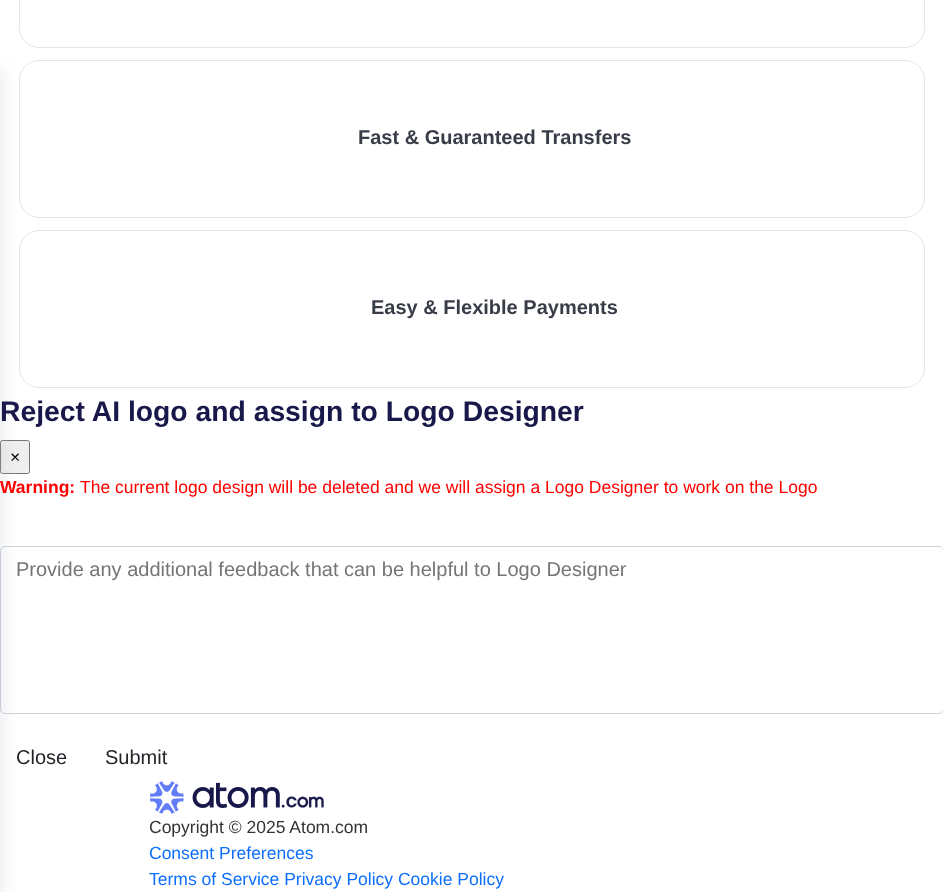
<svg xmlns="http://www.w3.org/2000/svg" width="943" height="892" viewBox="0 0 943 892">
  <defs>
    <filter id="blur1" x="-50%" y="-200%" width="200%" height="500%"><feGaussianBlur stdDeviation="7.5"/></filter>
  </defs>
  <rect width="100%" height="100%" fill="#ffffff"/>
  <rect x="19.5" y="-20.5" width="905" height="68" rx="19.5" fill="none" stroke="#e6e6e6"/>
  <rect x="19.5" y="60.5" width="905" height="157" rx="19.5" fill="none" stroke="#e6e6e6"/>
  <rect x="19.5" y="230.5" width="905" height="157" rx="19.5" fill="none" stroke="#e6e6e6"/>
  <rect x="0.5" y="440.5" width="29" height="33" rx="2" fill="#efefef" stroke="#767676"/>
  <rect x="0.5" y="546.5" width="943" height="167" rx="4.5" fill="none" stroke="#ced4da"/>
  <rect x="-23" y="69" width="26" height="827" fill="#a4acb9" fill-opacity="0.24" filter="url(#blur1)"/>
  <text x="358" y="144" font-family="Liberation Sans" font-size="20" font-weight="bold" fill="#383c46">Fast &amp; Guaranteed Transfers</text>
  <text x="371" y="314" font-family="Liberation Sans" font-size="20" font-weight="bold" fill="#383c46">Easy &amp; Flexible Payments</text>
  <text x="0" y="421" font-family="Liberation Sans" font-size="28.3" font-weight="bold" fill="#19184a">Reject AI logo and assign to Logo Designer</text>
  <text x="10" y="463" font-family="Liberation Sans" font-size="17.5" fill="#000000">×</text>
  <text x="0" y="493" font-family="Liberation Sans" font-size="17.5" font-weight="bold" fill="#ff0000">Warning:</text>
  <text x="80" y="493" font-family="Liberation Sans" font-size="17.5" fill="#ff0000">The current logo design will be deleted and we will assign a Logo Designer to work on the Logo</text>
  <text x="16" y="576" font-family="Liberation Sans" font-size="20" fill="#757575">Provide any additional feedback that can be helpful to Logo Designer</text>
  <text x="16" y="764" font-family="Liberation Sans" font-size="20" fill="#212529">Close</text>
  <text x="105" y="764" font-family="Liberation Sans" font-size="20" fill="#212529">Submit</text>
  <image x="150" y="781" width="174" height="33" href="img1.png"/>
  <text x="149" y="833" font-family="Liberation Sans" font-size="17.5" fill="#343434">Copyright © 2025 Atom.com</text>
  <text x="149" y="859" font-family="Liberation Sans" font-size="17.5" fill="#0d6efd">Consent Preferences</text>
  <text x="149" y="885" font-family="Liberation Sans" font-size="17.5" fill="#0d6efd">Terms of Service Privacy Policy Cookie Policy</text>
</svg>
